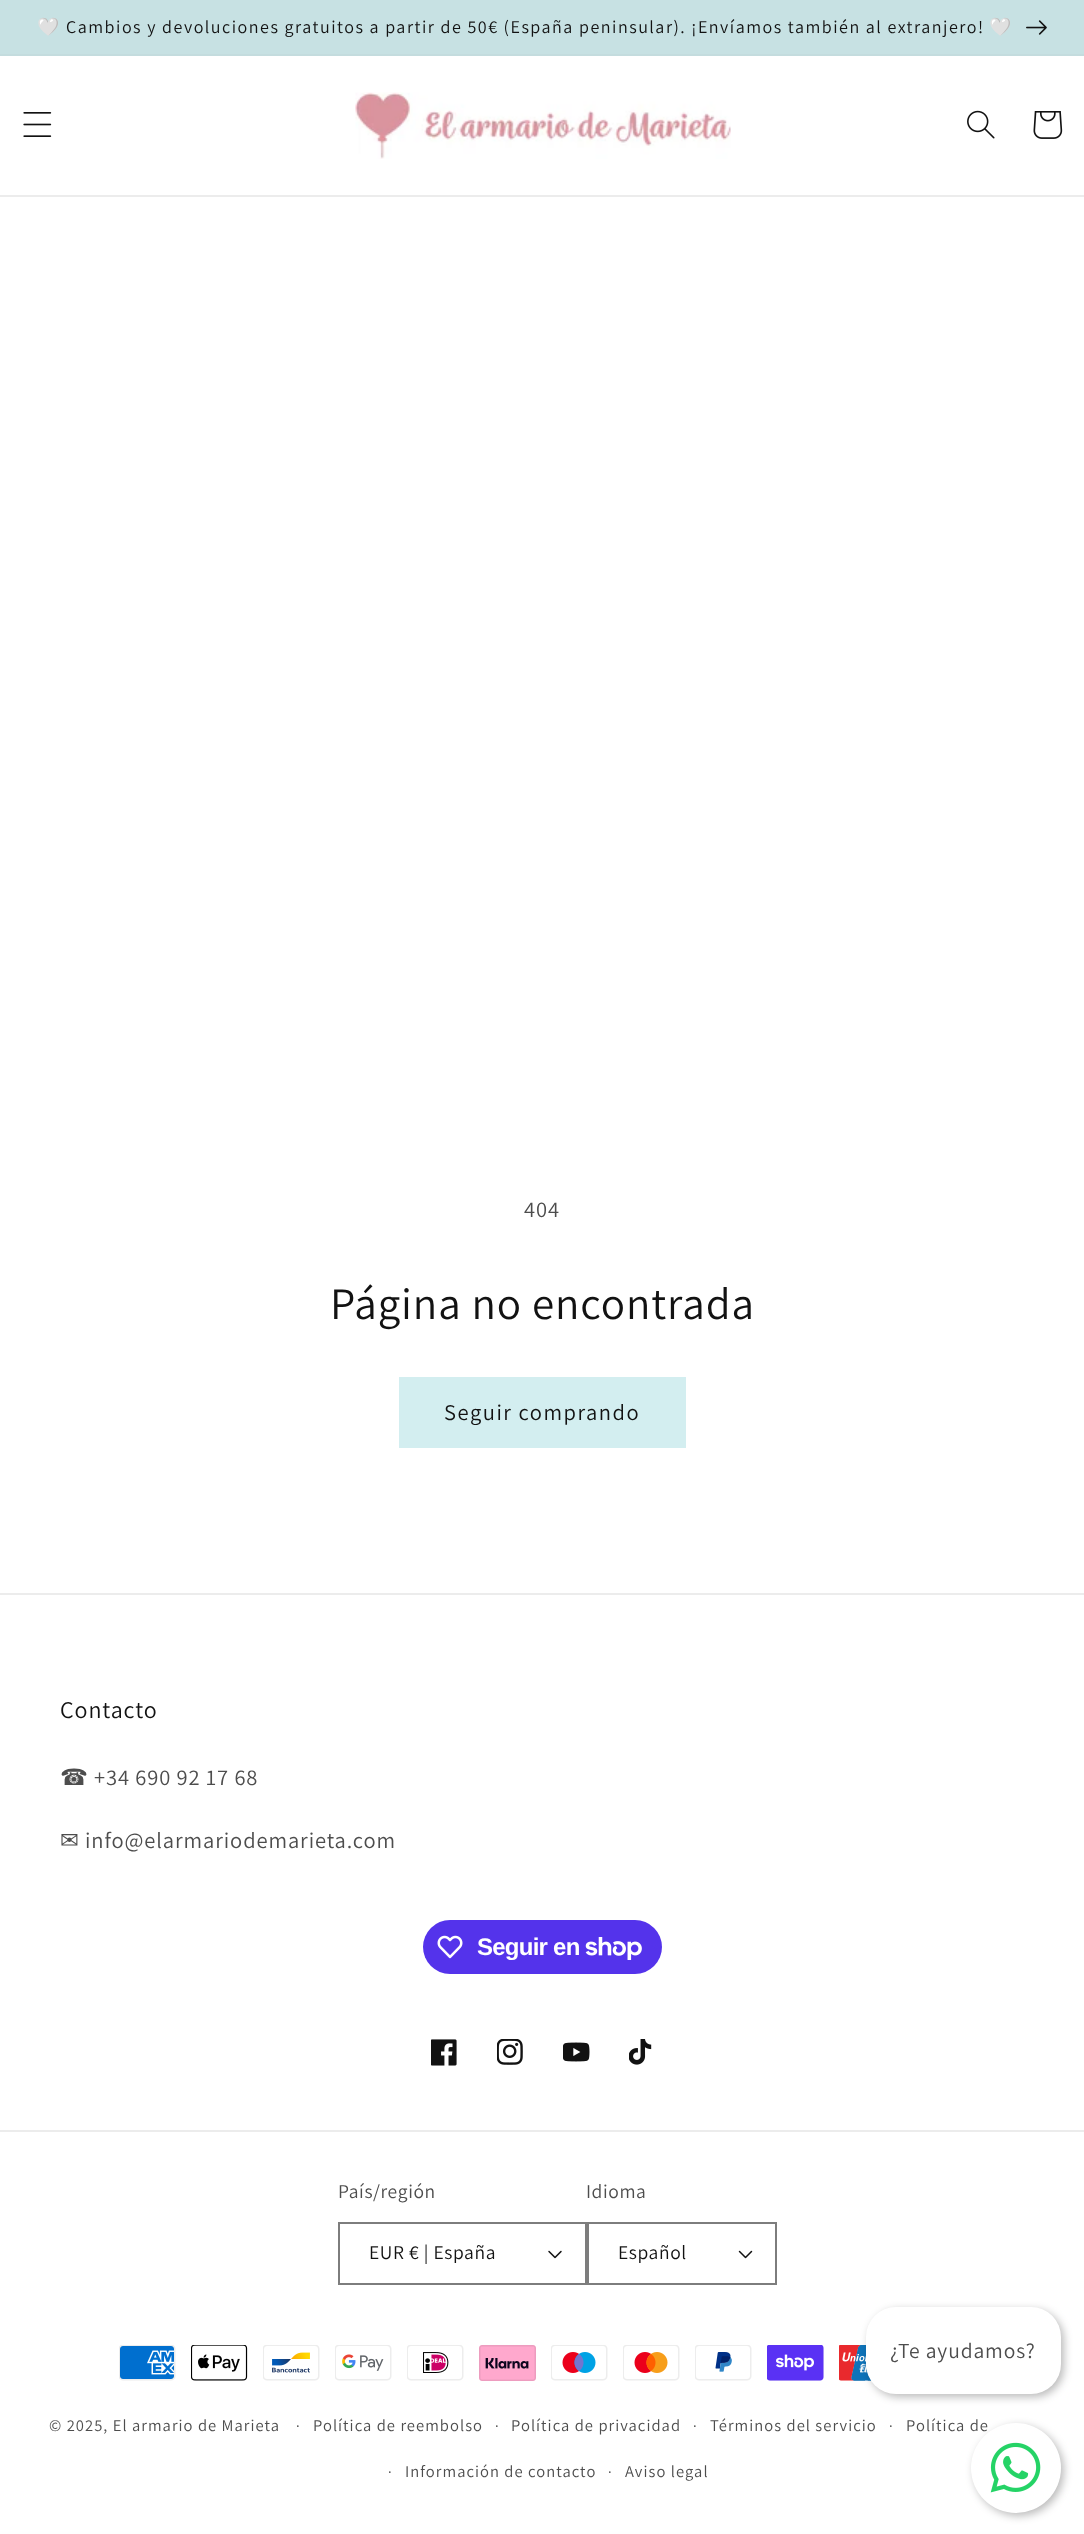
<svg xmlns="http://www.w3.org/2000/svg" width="1084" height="2534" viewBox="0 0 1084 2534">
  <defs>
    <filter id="blur1" x="-50%" y="-200%" width="200%" height="500%"><feGaussianBlur stdDeviation="4"/></filter>
  </defs>
  <rect width="100%" height="100%" fill="#ffffff"/>
  <rect x="0" y="54" width="1084" height="2" fill="#c4dcde"/>
  <rect x="0" y="0" width="1084" height="54" fill="#c7e1e3"/>
  <text x="37" y="33" font-family="Noto Color Emoji" font-size="18" letter-spacing="1.5" fill="#121212">🤍</text>
  <text x="66" y="33" font-family="Assistant" font-size="18" letter-spacing="1.5" fill="#121212">Cambios y devoluciones gratuitos a partir de 50€ (España peninsular). ¡Envíamos también al extranjero!</text>
  <text x="989" y="33" font-family="Noto Color Emoji" font-size="18" letter-spacing="1.5" fill="#121212">🤍</text>
  <image x="1026" y="20" width="21" height="15" href="img1.png"/>
  <rect x="0" y="195" width="1084" height="2" fill="#ececec"/>
  <image x="23" y="112" width="29" height="25" href="img2.png"/>
  <image x="355" y="92" width="376" height="67" href="img3.png"/>
  <image x="967" y="110" width="28" height="29" href="img4.png"/>
  <image x="1033" y="111" width="30" height="28" href="img5.png"/>
  <text x="524" y="1217" font-family="Assistant" font-size="22.5" letter-spacing="0.9" fill="#4d4d4d">404</text>
  <text x="330" y="1319" font-family="Assistant" font-size="45" letter-spacing="0.9" fill="#121212">Página no encontrada</text>
  <rect x="399" y="1377" width="287" height="71" fill="#d3eef0"/>
  <text x="444" y="1420" font-family="Assistant" font-size="22.5" letter-spacing="1.5" fill="#121212">Seguir comprando</text>
  <rect x="0" y="1593" width="1084" height="2" fill="#ececec"/>
  <text x="60" y="1718" font-family="Assistant" font-size="24" letter-spacing="0.9" fill="#121212">Contacto</text>
  <text x="60" y="1785" font-family="DejaVu Sans" font-size="22.5" letter-spacing="0.9" fill="#4d4d4d">☎</text>
  <text x="94" y="1785" font-family="Assistant" font-size="22.5" letter-spacing="0.9" fill="#4d4d4d">+34 690 92 17 68</text>
  <text x="60" y="1848" font-family="DejaVu Sans" font-size="22.5" letter-spacing="0.9" fill="#4d4d4d">✉</text>
  <text x="85" y="1848" font-family="Assistant" font-size="22.5" letter-spacing="0.9" fill="#4d4d4d">info@elarmariodemarieta.com</text>
  <rect x="423" y="1920" width="239" height="54" rx="27" fill="#5433eb"/>
  <image x="437" y="1935" width="26" height="24" href="img6.png"/>
  <text x="477" y="1955" font-family="Liberation Sans" font-size="24" font-weight="bold" letter-spacing="-0.75" fill="#ffffff">Seguir en</text>
  <image x="585" y="1937" width="57" height="23" href="img7.png"/>
  <image x="431" y="2039" width="26" height="27" href="img8.png"/>
  <image x="497" y="2039" width="26" height="26" href="img9.png"/>
  <image x="563" y="2042" width="27" height="20" href="img10.png"/>
  <image x="629" y="2039" width="23" height="26" href="img11.png"/>
  <rect x="0" y="2130" width="1084" height="2" fill="#ececec"/>
  <text x="338" y="2198" font-family="Assistant" font-size="19.5" letter-spacing="0.6" fill="#4d4d4d">País/región</text>
  <image x="548" y="2250" width="14" height="9" href="img12.png"/>
  <rect x="339" y="2223" width="247" height="61" fill="none" stroke="#7d7d7d" stroke-width="2"/>
  <text x="369" y="2259" font-family="Assistant" font-size="19.5" letter-spacing="0.6" fill="#121212">EUR € | España</text>
  <text x="586" y="2198" font-family="Assistant" font-size="19.5" letter-spacing="0.6" fill="#4d4d4d">Idioma</text>
  <image x="738" y="2250" width="15" height="9" href="img13.png"/>
  <rect x="588" y="2223" width="188" height="61" fill="none" stroke="#7d7d7d" stroke-width="2"/>
  <text x="618" y="2259" font-family="Assistant" font-size="19.5" letter-spacing="0.6" fill="#121212">Español</text>
  <image x="119" y="2345" width="57" height="36" href="img14.png"/>
  <image x="191" y="2345" width="57" height="36" href="img15.png"/>
  <image x="263" y="2345" width="57" height="36" href="img16.png"/>
  <image x="335" y="2345" width="57" height="36" href="img17.png"/>
  <image x="407" y="2345" width="57" height="36" href="img18.png"/>
  <image x="479" y="2345" width="57" height="36" href="img19.png"/>
  <image x="551" y="2345" width="57" height="36" href="img20.png"/>
  <image x="623" y="2345" width="57" height="36" href="img21.png"/>
  <image x="695" y="2345" width="57" height="36" href="img22.png"/>
  <image x="767" y="2345" width="57" height="36" href="img23.png"/>
  <image x="839" y="2345" width="33" height="36" href="img24.png"/>
  <text x="49" y="2431" font-family="Assistant" font-size="16.5" letter-spacing="1.05" fill="#4d4d4d">© 2025, El armario de Marieta</text>
  <text x="296" y="2431" font-family="Assistant" font-size="15" letter-spacing="1.05" fill="#4d4d4d">·</text>
  <text x="313" y="2431" font-family="Assistant" font-size="16.5" letter-spacing="1.05" fill="#4d4d4d">Política de reembolso</text>
  <text x="495" y="2431" font-family="Assistant" font-size="15" letter-spacing="1.05" fill="#4d4d4d">·</text>
  <text x="511" y="2431" font-family="Assistant" font-size="16.5" letter-spacing="1.05" fill="#4d4d4d">Política de privacidad</text>
  <text x="693" y="2431" font-family="Assistant" font-size="15" letter-spacing="1.05" fill="#4d4d4d">·</text>
  <text x="710" y="2431" font-family="Assistant" font-size="16.5" letter-spacing="1.05" fill="#4d4d4d">Términos del servicio</text>
  <text x="889" y="2431" font-family="Assistant" font-size="15" letter-spacing="1.05" fill="#4d4d4d">·</text>
  <text x="906" y="2431" font-family="Assistant" font-size="16.5" letter-spacing="1.05" fill="#4d4d4d">Política de</text>
  <text x="388" y="2477" font-family="Assistant" font-size="15" letter-spacing="1.05" fill="#4d4d4d">·</text>
  <text x="405" y="2477" font-family="Assistant" font-size="16.5" letter-spacing="1.05" fill="#4d4d4d">Información de contacto</text>
  <text x="608" y="2477" font-family="Assistant" font-size="15" letter-spacing="1.05" fill="#4d4d4d">·</text>
  <text x="625" y="2477" font-family="Assistant" font-size="16.5" letter-spacing="1.05" fill="#4d4d4d">Aviso legal</text>
  <rect x="869" y="2310" width="195" height="87" rx="30" fill="#000000" fill-opacity="0.27" filter="url(#blur1)"/>
  <rect x="866" y="2307" width="195" height="87" rx="30" fill="#ffffff"/>
  <text x="890" y="2358" font-family="Assistant" font-size="21.5" letter-spacing="0.9" fill="#4d4d4d">¿Te ayudamos?</text>
  <rect x="974" y="2426" width="90" height="90" rx="45" fill="#000000" fill-opacity="0.27" filter="url(#blur1)"/>
  <circle cx="1016" cy="2468" r="45" fill="#ffffff"/>
  <image x="990" y="2442" width="51" height="51" href="img25.png"/>
</svg>
